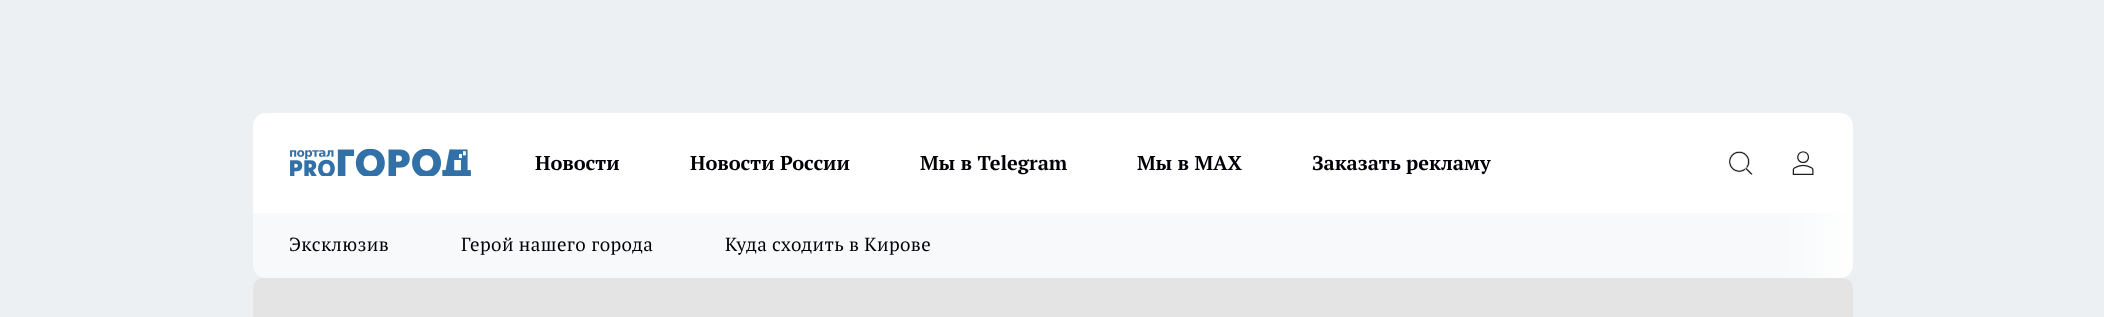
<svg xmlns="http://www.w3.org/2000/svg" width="2104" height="317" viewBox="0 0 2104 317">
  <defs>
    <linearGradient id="g1" gradientUnits="userSpaceOnUse" x1="1781" y1="245" x2="1856" y2="245"><stop offset="0" stop-color="#ffffff" stop-opacity="0"/><stop offset="1" stop-color="#ffffff"/></linearGradient>
  </defs>
  <rect width="100%" height="100%" fill="#ecf0f2"/>
  <path d="M266 113H1840C1847 113 1853 119 1853 126V213H253V126C253 119 259 113 266 113Z" fill="#ffffff"/>
  <image x="290" y="149" width="181" height="27" href="img1.png"/>
  <text x="535" y="170" font-family="PT Serif" font-size="20" font-weight="bold" fill="#000106">Новости</text>
  <text x="690" y="170" font-family="PT Serif" font-size="20" font-weight="bold" fill="#000106">Новости России</text>
  <text x="920" y="170" font-family="PT Serif" font-size="20" font-weight="bold" fill="#000106">Мы в Telegram</text>
  <text x="1137" y="170" font-family="PT Serif" font-size="20" font-weight="bold" fill="#000106">Мы в MAX</text>
  <text x="1312" y="170" font-family="PT Serif" font-size="20" font-weight="bold" fill="#000106">Заказать рекламу</text>
  <image x="1729" y="151" width="24" height="24" href="img2.png"/>
  <image x="1792" y="151" width="22" height="24" href="img3.png"/>
  <path d="M253 213H1853V265C1853 272 1847 278 1840 278H266C259 278 253 272 253 265Z" fill="#f7f9fa"/>
  <text x="289" y="251" font-family="PT Serif" font-size="18.9" letter-spacing="0.4" fill="#000106">Эксклюзив</text>
  <text x="461" y="251" font-family="PT Serif" font-size="18.9" letter-spacing="0.4" fill="#000106">Герой нашего города</text>
  <text x="725" y="251" font-family="PT Serif" font-size="18.9" letter-spacing="0.4" fill="#000106">Куда сходить в Кирове</text>
  <path d="M1781 213H1853V265C1853 272 1847 278 1840 278H1781Z" fill="url(#g1)"/>
  <rect x="253" y="278" width="1600" height="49" rx="10" fill="#e4e4e4"/>
</svg>
